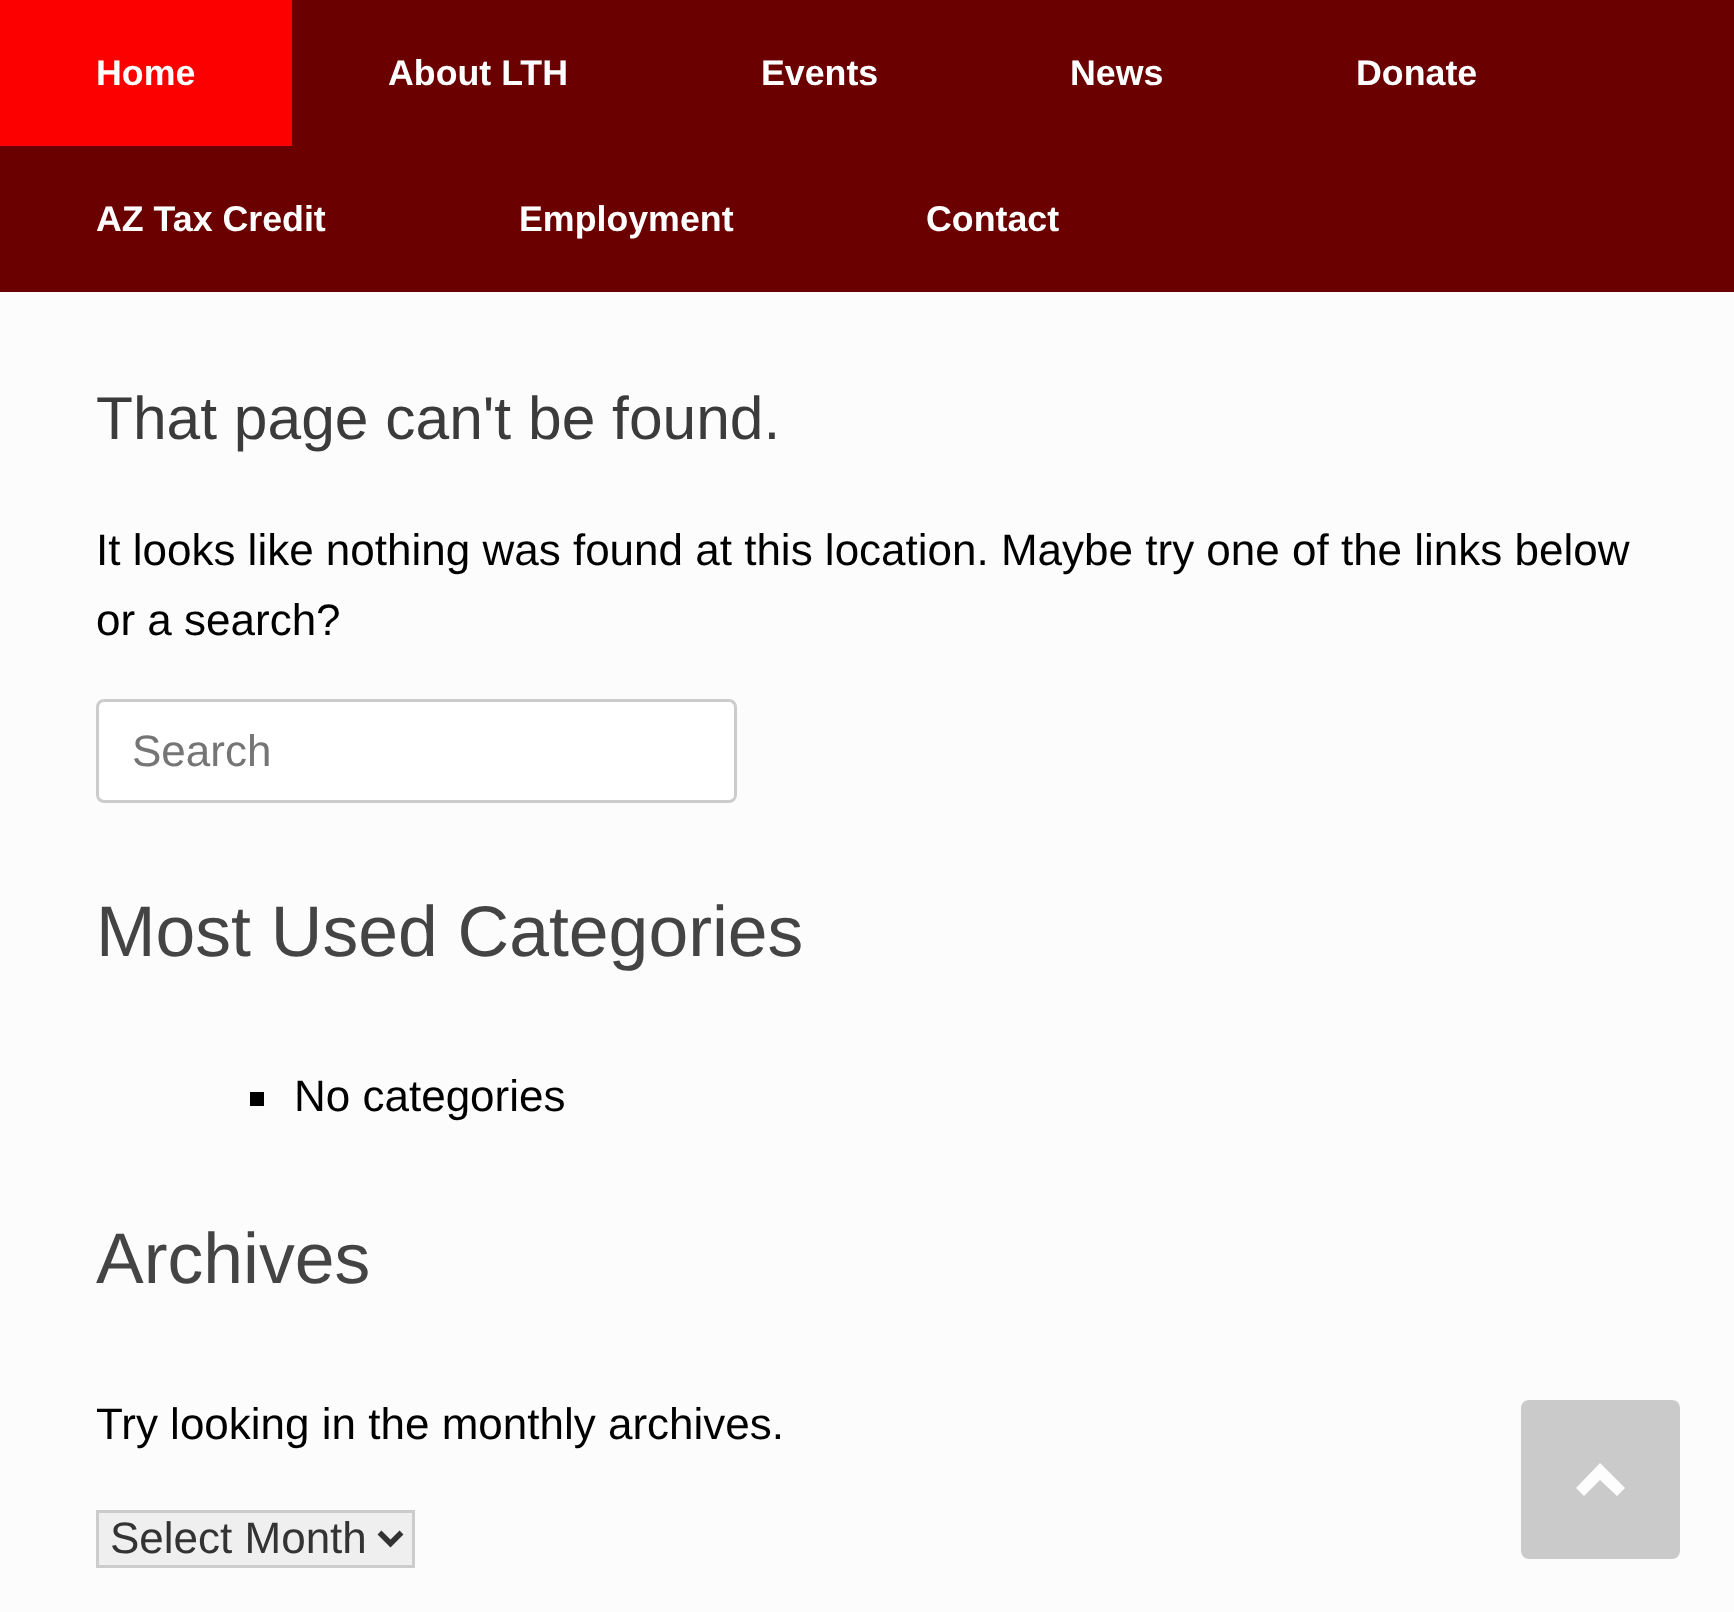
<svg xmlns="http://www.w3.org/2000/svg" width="1734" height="1612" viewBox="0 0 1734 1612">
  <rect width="100%" height="100%" fill="#fcfcfc"/>
  <rect x="0" y="0" width="1734" height="292" fill="#6b0000"/>
  <rect x="0" y="0" width="292" height="146" fill="#fc0000"/>
  <text x="96" y="85" font-family="Liberation Sans" font-size="35.75" font-weight="bold" fill="#ffffff">Home</text>
  <text x="388" y="85" font-family="Liberation Sans" font-size="35.75" font-weight="bold" fill="#ffffff">About LTH</text>
  <text x="761" y="85" font-family="Liberation Sans" font-size="35.75" font-weight="bold" fill="#ffffff">Events</text>
  <text x="1070" y="85" font-family="Liberation Sans" font-size="35.75" font-weight="bold" fill="#ffffff">News</text>
  <text x="1356" y="85" font-family="Liberation Sans" font-size="35.75" font-weight="bold" fill="#ffffff">Donate</text>
  <text x="96" y="231" font-family="Liberation Sans" font-size="35.75" font-weight="bold" fill="#ffffff">AZ Tax Credit</text>
  <text x="519" y="231" font-family="Liberation Sans" font-size="35.75" font-weight="bold" fill="#ffffff">Employment</text>
  <text x="926" y="231" font-family="Liberation Sans" font-size="35.75" font-weight="bold" fill="#ffffff">Contact</text>
  <text x="96" y="439" font-family="Liberation Sans" font-size="60.5" fill="#3b3b3b">That page can't be found.</text>
  <text x="96" y="565" font-family="Liberation Sans" font-size="44" fill="#000000">It looks like nothing was found at this location. Maybe try one of the links below</text>
  <text x="96" y="635" font-family="Liberation Sans" font-size="44" fill="#000000">or a search?</text>
  <rect x="97.5" y="700.5" width="638" height="101" rx="6.5" fill="#ffffff" stroke="#cccccc" stroke-width="3"/>
  <text x="132" y="766" font-family="Liberation Sans" font-size="44" fill="#757575">Search</text>
  <text x="96" y="956" font-family="Liberation Sans" font-size="71.5" fill="#444444">Most Used Categories</text>
  <rect x="250" y="1092" width="14" height="14" fill="#000000"/>
  <text x="294" y="1111" font-family="Liberation Sans" font-size="44" fill="#000000">No categories</text>
  <text x="96" y="1283" font-family="Liberation Sans" font-size="71.5" fill="#444444">Archives</text>
  <text x="96" y="1439" font-family="Liberation Sans" font-size="44" fill="#000000">Try looking in the monthly archives.</text>
  <rect x="97.5" y="1511.5" width="316" height="55" fill="#efefef" stroke="#cccccc" stroke-width="3"/>
  <path d="M379.5 1532.5L390.5 1543.5L401.5 1532.5" fill="none" stroke="#333333" stroke-width="5.5"/>
  <text x="110" y="1553" font-family="Liberation Sans" font-size="44" fill="#333333">Select Month</text>
  <rect x="1521" y="1400" width="159" height="159" rx="8" fill="#cacaca"/>
  <path d="M1625 1488L1600 1463L1576 1488L1584 1496L1600 1480L1617 1496Z" fill="#fdfdfd"/>
</svg>
